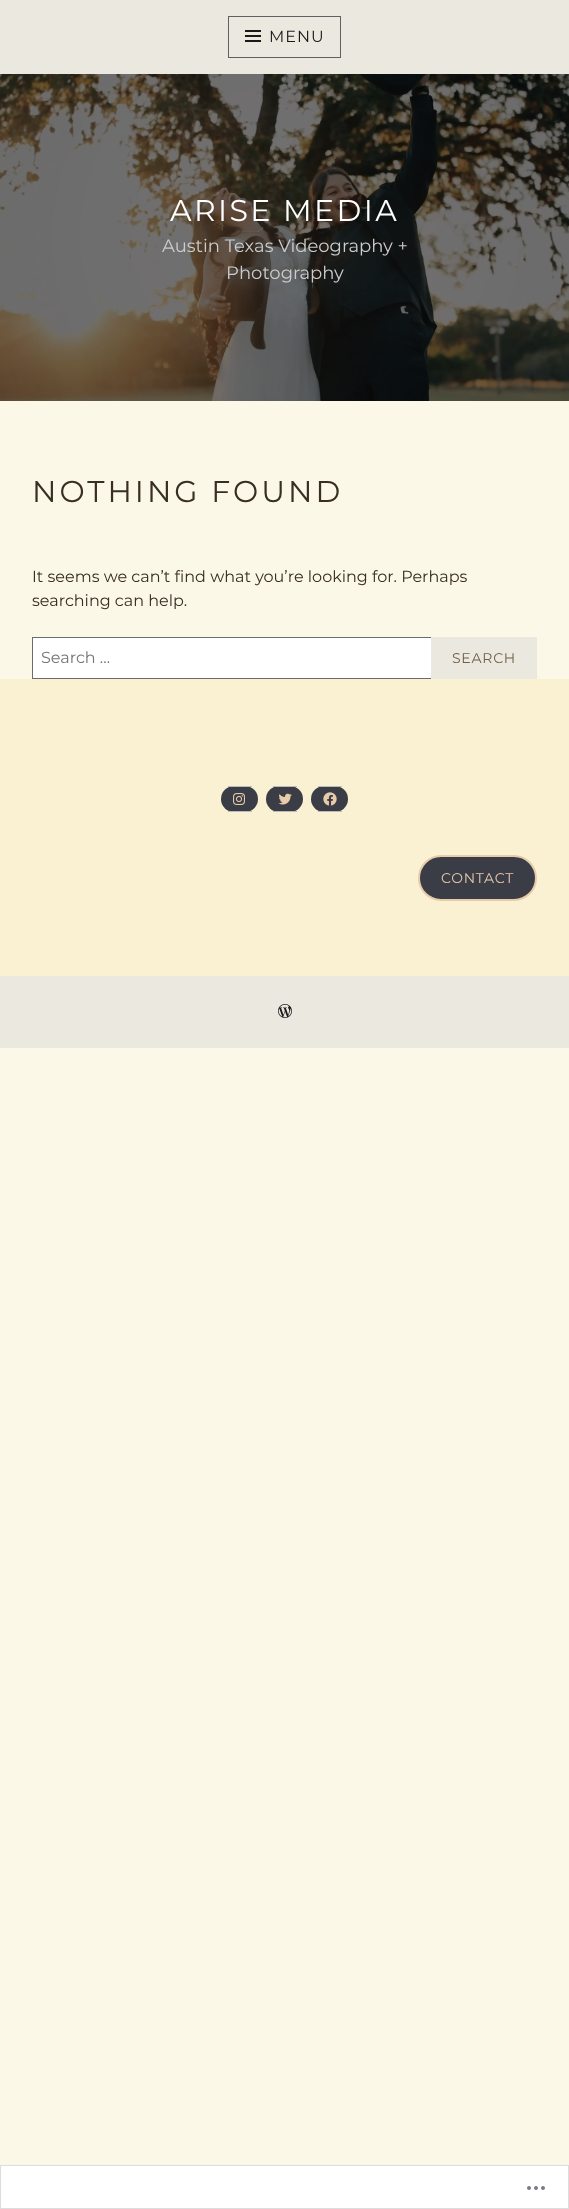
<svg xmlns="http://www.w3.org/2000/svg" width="569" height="2209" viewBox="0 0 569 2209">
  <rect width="100%" height="100%" fill="#fcf8e8"/>
  <rect x="0" y="0" width="569" height="74" fill="#ebe8df"/>
  <rect x="228.5" y="16.5" width="112" height="41" fill="none" stroke="#606060"/>
  <image x="245" y="30" width="16" height="12" href="img1.png"/>
  <text x="269" y="42" font-family="Montserrat" font-size="16" letter-spacing="1" fill="#191919">MENU</text>
  <image x="0" y="74" width="569" height="327" href="img2.png"/>
  <text x="170" y="221" font-family="Montserrat" font-size="30" letter-spacing="2.4" fill="#ffffff">ARISE MEDIA</text>
  <text x="162" y="252" font-family="Montserrat" font-size="18" fill="#cccccc">Austin Texas Videography +</text>
  <text x="226" y="279" font-family="Montserrat" font-size="18" fill="#cccccc">Photography</text>
  <text x="32" y="502" font-family="Montserrat" font-size="30" letter-spacing="3" fill="#382e23">NOTHING FOUND</text>
  <text x="32" y="582" font-family="Montserrat" font-size="16" fill="#382e23">It seems we can’t find what you’re looking for. Perhaps</text>
  <text x="32" y="606" font-family="Montserrat" font-size="16" fill="#382e23">searching can help.</text>
  <rect x="33" y="638" width="398" height="40" fill="#ffffff"/>
  <rect x="32.5" y="637.5" width="504" height="41" fill="none" stroke="#6b6b6b"/>
  <text x="41" y="663" font-family="Montserrat" font-size="16" fill="#757575">Search …</text>
  <rect x="431" y="637" width="106" height="42" fill="#ebe8df"/>
  <text x="452" y="663" font-family="Montserrat" font-size="14" letter-spacing="0.75" fill="#6f5f47">SEARCH</text>
  <rect x="0" y="679" width="569" height="297" fill="#f9f1d1"/>
  <rect x="221" y="786" width="37" height="26" rx="13" fill="#3b3d46"/>
  <rect x="228" y="786" width="24" height="1" fill="#bbbbbb"/>
  <rect x="228" y="811" width="24" height="1" fill="#bbbbbb"/>
  <image x="233" y="793" width="12" height="12" href="img3.png"/>
  <rect x="266" y="786" width="37" height="26" rx="13" fill="#3b3d46"/>
  <rect x="273" y="786" width="24" height="1" fill="#bbbbbb"/>
  <rect x="273" y="811" width="24" height="1" fill="#bbbbbb"/>
  <image x="278" y="793" width="14" height="12" href="img4.png"/>
  <rect x="311" y="786" width="37" height="26" rx="13" fill="#3b3d46"/>
  <rect x="318" y="786" width="24" height="1" fill="#bbbbbb"/>
  <rect x="318" y="811" width="24" height="1" fill="#bbbbbb"/>
  <image x="323" y="792" width="14" height="14" href="img5.png"/>
  <rect x="419" y="856" width="117" height="44" rx="22" fill="#3b3d46" stroke="#e7cbaa" stroke-width="2"/>
  <text x="441" y="883" font-family="Montserrat" font-size="14" letter-spacing="0.75" fill="#e7cbaa">CONTACT</text>
  <rect x="0" y="976" width="569" height="72" fill="#ebe8df"/>
  <image x="278" y="1004" width="14" height="14" href="img6.png"/>
  <rect x="0.5" y="2165.5" width="568" height="43" fill="#ffffff" stroke="#ddddde"/>
  <image x="527" y="2186" width="18" height="4" href="img7.png"/>
</svg>
